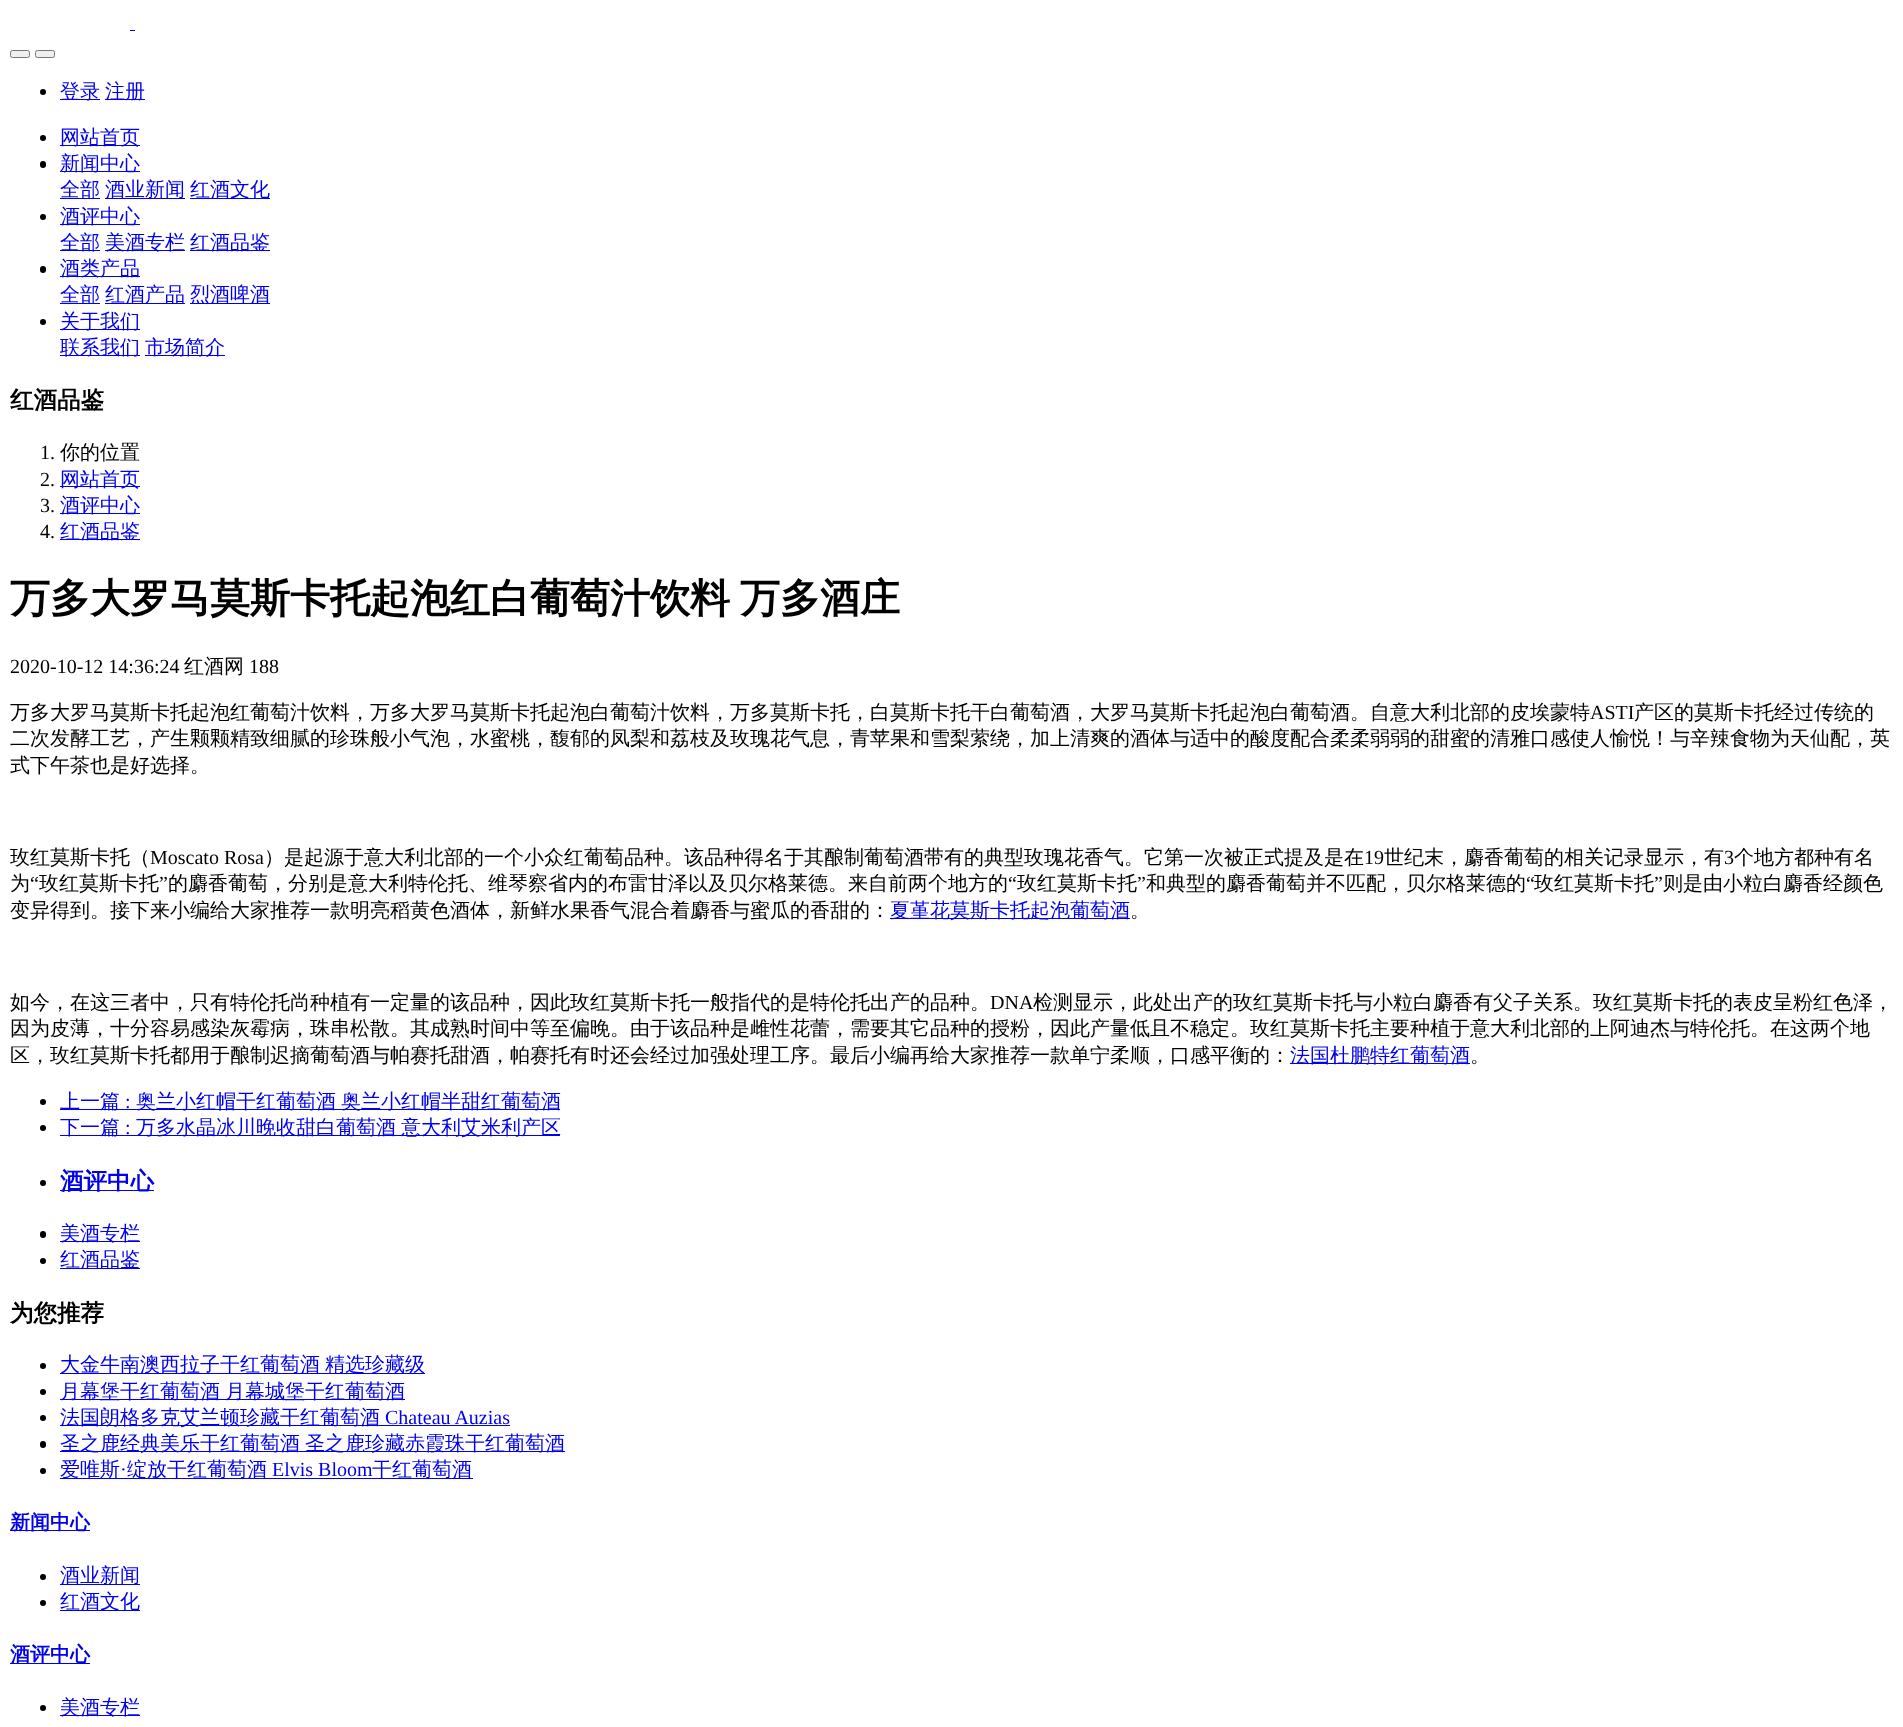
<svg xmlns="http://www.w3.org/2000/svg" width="1903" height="1727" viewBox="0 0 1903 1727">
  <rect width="100%" height="100%" fill="#ffffff"/>
  <rect x="130" y="30" width="5" height="1" fill="#0000ee"/>
  <rect x="10.5" y="50.5" width="19" height="7" rx="2" fill="#efefef" stroke="#767676"/>
  <rect x="35.5" y="50.5" width="19" height="7" rx="2" fill="#efefef" stroke="#767676"/>
  <circle cx="43" cy="92" r="3" fill="#000000"/>
  <rect x="60" y="99" width="40" height="1" fill="#0000ee"/>
  <text x="60" y="98" font-family="WenQuanYi Zen Hei" font-size="20" font-weight="500" fill="#0000ee">登录</text>
  <rect x="105" y="99" width="40" height="1" fill="#0000ee"/>
  <text x="105" y="98" font-family="WenQuanYi Zen Hei" font-size="20" font-weight="500" fill="#0000ee">注册</text>
  <circle cx="43" cy="138" r="3" fill="#000000"/>
  <rect x="60" y="145" width="80" height="1" fill="#0000ee"/>
  <text x="60" y="144" font-family="WenQuanYi Zen Hei" font-size="20" font-weight="500" fill="#0000ee">网站首页</text>
  <rect x="40" y="161" width="6" height="7" rx="3" fill="#000000"/>
  <rect x="60" y="171" width="80" height="1" fill="#0000ee"/>
  <text x="60" y="170" font-family="WenQuanYi Zen Hei" font-size="20" font-weight="500" fill="#0000ee">新闻中心</text>
  <rect x="60" y="198" width="40" height="1" fill="#0000ee"/>
  <text x="60" y="196" font-family="WenQuanYi Zen Hei" font-size="20" font-weight="500" fill="#0000ee">全部</text>
  <rect x="105" y="198" width="80" height="1" fill="#0000ee"/>
  <text x="105" y="196" font-family="WenQuanYi Zen Hei" font-size="20" font-weight="500" fill="#0000ee">酒业新闻</text>
  <rect x="190" y="198" width="80" height="1" fill="#0000ee"/>
  <text x="190" y="196" font-family="WenQuanYi Zen Hei" font-size="20" font-weight="500" fill="#0000ee">红酒文化</text>
  <circle cx="43" cy="217" r="3" fill="#000000"/>
  <rect x="60" y="224" width="80" height="1" fill="#0000ee"/>
  <text x="60" y="223" font-family="WenQuanYi Zen Hei" font-size="20" font-weight="500" fill="#0000ee">酒评中心</text>
  <rect x="60" y="250" width="40" height="1" fill="#0000ee"/>
  <text x="60" y="249" font-family="WenQuanYi Zen Hei" font-size="20" font-weight="500" fill="#0000ee">全部</text>
  <rect x="105" y="250" width="80" height="1" fill="#0000ee"/>
  <text x="105" y="249" font-family="WenQuanYi Zen Hei" font-size="20" font-weight="500" fill="#0000ee">美酒专栏</text>
  <rect x="190" y="250" width="80" height="1" fill="#0000ee"/>
  <text x="190" y="249" font-family="WenQuanYi Zen Hei" font-size="20" font-weight="500" fill="#0000ee">红酒品鉴</text>
  <rect x="40" y="266" width="6" height="7" rx="3" fill="#000000"/>
  <rect x="60" y="276" width="80" height="1" fill="#0000ee"/>
  <text x="60" y="275" font-family="WenQuanYi Zen Hei" font-size="20" font-weight="500" fill="#0000ee">酒类产品</text>
  <rect x="60" y="303" width="40" height="1" fill="#0000ee"/>
  <text x="60" y="301" font-family="WenQuanYi Zen Hei" font-size="20" font-weight="500" fill="#0000ee">全部</text>
  <rect x="105" y="303" width="80" height="1" fill="#0000ee"/>
  <text x="105" y="301" font-family="WenQuanYi Zen Hei" font-size="20" font-weight="500" fill="#0000ee">红酒产品</text>
  <rect x="190" y="303" width="80" height="1" fill="#0000ee"/>
  <text x="190" y="301" font-family="WenQuanYi Zen Hei" font-size="20" font-weight="500" fill="#0000ee">烈酒啤酒</text>
  <circle cx="43" cy="322" r="3" fill="#000000"/>
  <rect x="60" y="329" width="80" height="1" fill="#0000ee"/>
  <text x="60" y="328" font-family="WenQuanYi Zen Hei" font-size="20" font-weight="500" fill="#0000ee">关于我们</text>
  <rect x="60" y="355" width="80" height="1" fill="#0000ee"/>
  <text x="60" y="354" font-family="WenQuanYi Zen Hei" font-size="20" font-weight="500" fill="#0000ee">联系我们</text>
  <rect x="145" y="355" width="80" height="1" fill="#0000ee"/>
  <text x="145" y="354" font-family="WenQuanYi Zen Hei" font-size="20" font-weight="500" fill="#0000ee">市场简介</text>
  <text x="10" y="408" font-family="WenQuanYi Zen Hei" font-size="23.5" font-weight="bold" fill="#000000">红酒品鉴</text>
  <text x="40" y="459" font-family="Liberation Serif" font-size="20" fill="#000000">1.</text>
  <text x="60" y="459" font-family="WenQuanYi Zen Hei" font-size="20" font-weight="500" fill="#000000">你的位置</text>
  <text x="40" y="486" font-family="Liberation Serif" font-size="20" fill="#000000">2.</text>
  <rect x="60" y="486" width="80" height="1" fill="#0000ee"/>
  <text x="60" y="486" font-family="WenQuanYi Zen Hei" font-size="20" font-weight="500" fill="#0000ee">网站首页</text>
  <text x="40" y="512" font-family="Liberation Serif" font-size="20" fill="#000000">3.</text>
  <rect x="60" y="513" width="80" height="1" fill="#0000ee"/>
  <text x="60" y="512" font-family="WenQuanYi Zen Hei" font-size="20" font-weight="500" fill="#0000ee">酒评中心</text>
  <text x="40" y="538" font-family="Liberation Serif" font-size="20" fill="#000000">4.</text>
  <rect x="60" y="539" width="80" height="1" fill="#0000ee"/>
  <text x="60" y="538" font-family="WenQuanYi Zen Hei" font-size="20" font-weight="500" fill="#0000ee">红酒品鉴</text>
  <text x="10" y="612" word-spacing="-2" font-family="WenQuanYi Zen Hei" font-size="40" font-weight="bold" fill="#000000">万多大罗马莫斯卡托起泡红白葡萄汁饮料 万多酒庄</text>
  <text x="10" y="673" font-family="Liberation Serif" font-size="20" fill="#000000">2020-10-12 14:36:24</text>
  <text x="184" y="673" font-family="WenQuanYi Zen Hei" font-size="20" font-weight="500" fill="#000000">红酒网</text>
  <text x="249" y="673" font-family="Liberation Serif" font-size="20" fill="#000000">188</text>
  <text x="10" y="719" font-family="WenQuanYi Zen Hei" font-size="20" font-weight="500" fill="#000000">万多大罗马莫斯卡托起泡红葡萄汁饮料，万多大罗马莫斯卡托起泡白葡萄汁饮料，万多莫斯卡托，白莫斯卡托干白葡萄酒，大罗马莫斯卡托起泡白葡萄酒。自意大利北部的皮埃蒙特</text>
  <text x="1590" y="719" font-family="Liberation Serif" font-size="20" fill="#000000">ASTI</text>
  <text x="1634" y="719" font-family="WenQuanYi Zen Hei" font-size="20" font-weight="500" fill="#000000">产区的莫斯卡托经过传统的</text>
  <text x="10" y="745" font-family="WenQuanYi Zen Hei" font-size="20" font-weight="500" fill="#000000">二次发酵工艺，产生颗颗精致细腻的珍珠般小气泡，水蜜桃，馥郁的凤梨和荔枝及玫瑰花气息，青苹果和雪梨萦绕，加上清爽的酒体与适中的酸度配合柔柔弱弱的甜蜜的清雅口感使人愉悦！与辛辣食物为天仙配，英</text>
  <text x="10" y="772" font-family="WenQuanYi Zen Hei" font-size="20" font-weight="500" fill="#000000">式下午茶也是好选择。</text>
  <text x="10" y="864" font-family="WenQuanYi Zen Hei" font-size="20" font-weight="500" fill="#000000">玫红莫斯卡托（</text>
  <text x="150" y="864" font-family="Liberation Serif" font-size="20" fill="#000000">Moscato Rosa</text>
  <text x="264" y="864" font-family="WenQuanYi Zen Hei" font-size="20" font-weight="500" fill="#000000">）是起源于意大利北部的一个小众红葡萄品种。该品种得名于其酿制葡萄酒带有的典型玫瑰花香气。它第一次被正式提及是在</text>
  <text x="1364" y="864" font-family="Liberation Serif" font-size="20" fill="#000000">19</text>
  <text x="1384" y="864" font-family="WenQuanYi Zen Hei" font-size="20" font-weight="500" fill="#000000">世纪末，麝香葡萄的相关记录显示，有</text>
  <text x="1724" y="864" font-family="Liberation Serif" font-size="20" fill="#000000">3</text>
  <text x="1734" y="864" font-family="WenQuanYi Zen Hei" font-size="20" font-weight="500" fill="#000000">个地方都种有名</text>
  <text x="10" y="890" font-family="WenQuanYi Zen Hei" font-size="20" font-weight="500" fill="#000000">为</text>
  <text x="30" y="890" font-family="Liberation Serif" font-size="20" fill="#000000">“</text>
  <text x="39" y="890" font-family="WenQuanYi Zen Hei" font-size="20" font-weight="500" fill="#000000">玫红莫斯卡托</text>
  <text x="159" y="890" font-family="Liberation Serif" font-size="20" fill="#000000">”</text>
  <text x="168" y="890" font-family="WenQuanYi Zen Hei" font-size="20" font-weight="500" fill="#000000">的麝香葡萄，分别是意大利特伦托、维琴察省内的布雷甘泽以及贝尔格莱德。来自前两个地方的</text>
  <text x="1008" y="890" font-family="Liberation Serif" font-size="20" fill="#000000">“</text>
  <text x="1017" y="890" font-family="WenQuanYi Zen Hei" font-size="20" font-weight="500" fill="#000000">玫红莫斯卡托</text>
  <text x="1137" y="890" font-family="Liberation Serif" font-size="20" fill="#000000">”</text>
  <text x="1146" y="890" font-family="WenQuanYi Zen Hei" font-size="20" font-weight="500" fill="#000000">和典型的麝香葡萄并不匹配，贝尔格莱德的</text>
  <text x="1526" y="890" font-family="Liberation Serif" font-size="20" fill="#000000">“</text>
  <text x="1534" y="890" font-family="WenQuanYi Zen Hei" font-size="20" font-weight="500" fill="#000000">玫红莫斯卡托</text>
  <text x="1654" y="890" font-family="Liberation Serif" font-size="20" fill="#000000">”</text>
  <text x="1663" y="890" font-family="WenQuanYi Zen Hei" font-size="20" font-weight="500" fill="#000000">则是由小粒白麝香经颜色</text>
  <text x="10" y="917" font-family="WenQuanYi Zen Hei" font-size="20" font-weight="500" fill="#000000">变异得到。接下来小编给大家推荐一款明亮稻黄色酒体，新鲜水果香气混合着麝香与蜜瓜的香甜的：</text>
  <rect x="890" y="918" width="240" height="1" fill="#0000ee"/>
  <text x="890" y="917" font-family="WenQuanYi Zen Hei" font-size="20" font-weight="500" fill="#0000ee">夏堇花莫斯卡托起泡葡萄酒</text>
  <text x="1130" y="917" font-family="WenQuanYi Zen Hei" font-size="20" font-weight="500" fill="#000000">。</text>
  <text x="10" y="1009" font-family="WenQuanYi Zen Hei" font-size="20" font-weight="500" fill="#000000">如今，在这三者中，只有特伦托尚种植有一定量的该品种，因此玫红莫斯卡托一般指代的是特伦托出产的品种。</text>
  <text x="990" y="1009" font-family="Liberation Serif" font-size="20" fill="#000000">DNA</text>
  <text x="1033" y="1009" font-family="WenQuanYi Zen Hei" font-size="20" font-weight="500" fill="#000000">检测显示，此处出产的玫红莫斯卡托与小粒白麝香有父子关系。玫红莫斯卡托的表皮呈粉红色泽，</text>
  <text x="10" y="1035" font-family="WenQuanYi Zen Hei" font-size="20" font-weight="500" fill="#000000">因为皮薄，十分容易感染灰霉病，珠串松散。其成熟时间中等至偏晚。由于该品种是雌性花蕾，需要其它品种的授粉，因此产量低且不稳定。玫红莫斯卡托主要种植于意大利北部的上阿迪杰与特伦托。在这两个地</text>
  <text x="10" y="1062" font-family="WenQuanYi Zen Hei" font-size="20" font-weight="500" fill="#000000">区，玫红莫斯卡托都用于酿制迟摘葡萄酒与帕赛托甜酒，帕赛托有时还会经过加强处理工序。最后小编再给大家推荐一款单宁柔顺，口感平衡的：</text>
  <rect x="1290" y="1063" width="180" height="1" fill="#0000ee"/>
  <text x="1290" y="1062" font-family="WenQuanYi Zen Hei" font-size="20" font-weight="500" fill="#0000ee">法国杜鹏特红葡萄酒</text>
  <text x="1470" y="1062" font-family="WenQuanYi Zen Hei" font-size="20" font-weight="500" fill="#000000">。</text>
  <circle cx="43" cy="1102" r="3" fill="#000000"/>
  <rect x="60" y="1109" width="500" height="1" fill="#0000ee"/>
  <text x="60" y="1108" font-family="WenQuanYi Zen Hei" font-size="20" font-weight="500" fill="#0000ee">上一篇</text>
  <text x="125" y="1108" font-family="Liberation Serif" font-size="20" fill="#0000ee">:</text>
  <text x="136" y="1108" word-spacing="-1" font-family="WenQuanYi Zen Hei" font-size="20" font-weight="500" fill="#0000ee">奥兰小红帽干红葡萄酒 奥兰小红帽半甜红葡萄酒</text>
  <circle cx="43" cy="1128" r="3" fill="#000000"/>
  <rect x="60" y="1135" width="500" height="1" fill="#0000ee"/>
  <text x="60" y="1134" font-family="WenQuanYi Zen Hei" font-size="20" font-weight="500" fill="#0000ee">下一篇</text>
  <text x="125" y="1134" font-family="Liberation Serif" font-size="20" fill="#0000ee">:</text>
  <text x="136" y="1134" word-spacing="-1" font-family="WenQuanYi Zen Hei" font-size="20" font-weight="500" fill="#0000ee">万多水晶冰川晚收甜白葡萄酒 意大利艾米利产区</text>
  <circle cx="43" cy="1183" r="3" fill="#000000"/>
  <rect x="60" y="1190" width="94" height="1" fill="#0000ee"/>
  <text x="60" y="1189" font-family="WenQuanYi Zen Hei" font-size="23.5" font-weight="bold" fill="#0000ee">酒评中心</text>
  <rect x="40" y="1231" width="6" height="7" rx="3" fill="#000000"/>
  <rect x="60" y="1241" width="80" height="1" fill="#0000ee"/>
  <text x="60" y="1240" font-family="WenQuanYi Zen Hei" font-size="20" font-weight="500" fill="#0000ee">美酒专栏</text>
  <circle cx="43" cy="1261" r="3" fill="#000000"/>
  <rect x="60" y="1268" width="80" height="1" fill="#0000ee"/>
  <text x="60" y="1266" font-family="WenQuanYi Zen Hei" font-size="20" font-weight="500" fill="#0000ee">红酒品鉴</text>
  <text x="10" y="1321" font-family="WenQuanYi Zen Hei" font-size="23.5" font-weight="bold" fill="#000000">为您推荐</text>
  <circle cx="43" cy="1366" r="3" fill="#000000"/>
  <rect x="60" y="1373" width="365" height="1" fill="#0000ee"/>
  <text x="60" y="1371" word-spacing="-1" font-family="WenQuanYi Zen Hei" font-size="20" font-weight="500" fill="#0000ee">⼤⾦⽜南澳西拉⼦⼲红葡萄酒 精选珍藏级</text>
  <circle cx="43" cy="1392" r="3" fill="#000000"/>
  <rect x="60" y="1399" width="345" height="1" fill="#0000ee"/>
  <text x="60" y="1398" word-spacing="-1" font-family="WenQuanYi Zen Hei" font-size="20" font-weight="500" fill="#0000ee">⽉幕堡⼲红葡萄酒 ⽉幕城堡干红葡萄酒</text>
  <circle cx="43" cy="1418" r="3" fill="#000000"/>
  <rect x="60" y="1425" width="450" height="1" fill="#0000ee"/>
  <text x="60" y="1424" font-family="WenQuanYi Zen Hei" font-size="20" font-weight="500" fill="#0000ee">法国朗格多克艾兰顿珍藏⼲红葡萄酒</text>
  <text x="385" y="1424" font-family="Liberation Serif" font-size="20" fill="#0000ee">Chateau Auzias</text>
  <rect x="40" y="1441" width="6" height="7" rx="3" fill="#000000"/>
  <rect x="60" y="1451" width="505" height="1" fill="#0000ee"/>
  <text x="60" y="1450" word-spacing="-1" font-family="WenQuanYi Zen Hei" font-size="20" font-weight="500" fill="#0000ee">圣之⿅经典美乐⼲红葡萄酒 圣之⿅珍藏⾚霞珠⼲红葡萄酒</text>
  <circle cx="43" cy="1471" r="3" fill="#000000"/>
  <rect x="60" y="1478" width="413" height="1" fill="#0000ee"/>
  <text x="60" y="1476" font-family="WenQuanYi Zen Hei" font-size="20" font-weight="500" fill="#0000ee">爱唯斯</text>
  <text x="120" y="1476" font-family="Liberation Serif" font-size="20" fill="#0000ee">·</text>
  <text x="127" y="1476" font-family="WenQuanYi Zen Hei" font-size="20" font-weight="500" fill="#0000ee">绽放⼲红葡萄酒</text>
  <text x="272" y="1476" font-family="Liberation Serif" font-size="20" fill="#0000ee">Elvis Bloom</text>
  <text x="372" y="1476" font-family="WenQuanYi Zen Hei" font-size="20" font-weight="500" fill="#0000ee">干红葡萄酒</text>
  <rect x="10" y="1530" width="80" height="1" fill="#0000ee"/>
  <text x="10" y="1529" font-family="WenQuanYi Zen Hei" font-size="20" font-weight="bold" fill="#0000ee">新闻中心</text>
  <circle cx="43" cy="1577" r="3" fill="#000000"/>
  <rect x="60" y="1584" width="80" height="1" fill="#0000ee"/>
  <text x="60" y="1582" font-family="WenQuanYi Zen Hei" font-size="20" font-weight="500" fill="#0000ee">酒业新闻</text>
  <circle cx="43" cy="1603" r="3" fill="#000000"/>
  <rect x="60" y="1610" width="80" height="1" fill="#0000ee"/>
  <text x="60" y="1608" font-family="WenQuanYi Zen Hei" font-size="20" font-weight="500" fill="#0000ee">红酒文化</text>
  <rect x="10" y="1663" width="80" height="1" fill="#0000ee"/>
  <text x="10" y="1661" font-family="WenQuanYi Zen Hei" font-size="20" font-weight="bold" fill="#0000ee">酒评中心</text>
  <circle cx="43" cy="1708" r="3" fill="#000000"/>
  <rect x="60" y="1715" width="80" height="1" fill="#0000ee"/>
  <text x="60" y="1714" font-family="WenQuanYi Zen Hei" font-size="20" font-weight="500" fill="#0000ee">美酒专栏</text>
</svg>
